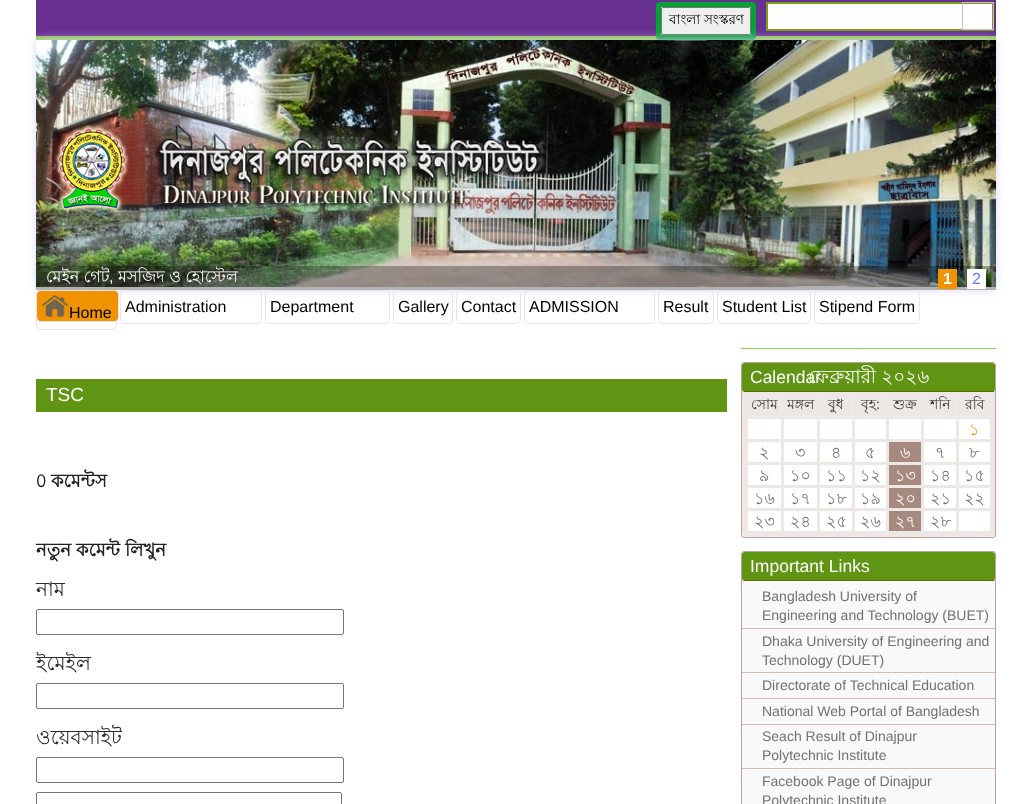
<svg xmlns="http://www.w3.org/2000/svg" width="1032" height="804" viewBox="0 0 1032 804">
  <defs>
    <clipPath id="clip1"><path d="M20 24H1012V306H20ZM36 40H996V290H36Z" clip-rule="evenodd"/></clipPath>
    <filter id="blur1" x="-50%" y="-200%" width="200%" height="500%"><feGaussianBlur stdDeviation="5"/></filter>
  </defs>
  <rect width="100%" height="100%" fill="#ffffff"/>
  <rect x="36" y="0" width="960" height="36" fill="#683091"/>
  <rect x="36" y="36" width="960" height="4" fill="#8bc643"/>
  <rect x="658.5" y="4.5" width="95" height="33" rx="1.5" fill="#ffffff" stroke="#07a138" stroke-width="5"/>
  <rect x="661.5" y="7.5" width="89" height="27" rx="1.5" fill="#efefef" stroke="#767676"/>
  <text x="669" y="24" font-family="Lohit Bengali" font-size="13.5" fill="#000000">বাংলা সংস্করণ</text>
  <rect x="767" y="3" width="226" height="27" fill="#ffffff" stroke="#7b9d18" stroke-width="2"/>
  <rect x="962.5" y="2.5" width="31" height="27" fill="none" stroke="#c2c2c2"/>
  <g clip-path="url(#clip1)">
    <rect x="36" y="40" width="960" height="250" fill="#d9d8fc" filter="url(#blur1)"/>
  </g>
  <image x="36" y="40" width="960" height="247" href="img2.png"/>
  <image x="54" y="125" width="493" height="89" href="img1.png"/>
  <rect x="36" y="266" width="960" height="24" fill="#000000" fill-opacity="0.3"/>
  <text x="46" y="282" font-family="Lohit Bengali" font-size="16" fill="#ffffff">মেইন গেট</text>
  <text x="109" y="282" font-family="Liberation Sans" font-size="16" fill="#ffffff">,</text>
  <text x="118" y="282" font-family="Lohit Bengali" font-size="16" fill="#ffffff">মসজিদ ও হোস্টেল</text>
  <rect x="938" y="269" width="19" height="20" fill="#f19300"/>
  <text x="943" y="284" font-family="Liberation Sans" font-size="16" font-weight="bold" fill="#ffffff">1</text>
  <rect x="967" y="269" width="19" height="20" fill="#ffffff"/>
  <text x="972" y="284" font-family="Liberation Sans" font-size="16" fill="#657dff">2</text>
  <rect x="36.5" y="290.5" width="80" height="39" rx="4.5" fill="none" stroke="#e7e5e6"/>
  <rect x="36.5" y="290.5" width="82" height="31" rx="4.5" fill="#f19300" stroke="#e7e5e6"/>
  <rect x="50" y="291" width="68" height="30" rx="5" fill="#f19300"/>
  <rect x="120.5" y="290.5" width="141" height="33" rx="4.5" fill="none" stroke="#e7e5e6"/>
  <text x="125" y="312" font-family="Liberation Sans" font-size="16" fill="#000000">Administration</text>
  <rect x="265.5" y="290.5" width="124" height="33" rx="4.5" fill="none" stroke="#e7e5e6"/>
  <text x="270" y="312" font-family="Liberation Sans" font-size="16" fill="#000000">Department</text>
  <rect x="393.5" y="290.5" width="59" height="33" rx="4.5" fill="none" stroke="#e7e5e6"/>
  <text x="398" y="312" font-family="Liberation Sans" font-size="16" fill="#000000">Gallery</text>
  <rect x="456.5" y="290.5" width="64" height="33" rx="4.5" fill="none" stroke="#e7e5e6"/>
  <text x="461" y="312" font-family="Liberation Sans" font-size="16" fill="#000000">Contact</text>
  <rect x="524.5" y="290.5" width="130" height="33" rx="4.5" fill="none" stroke="#e7e5e6"/>
  <text x="529" y="312" font-family="Liberation Sans" font-size="16" fill="#000000">ADMISSION</text>
  <rect x="658.5" y="290.5" width="55" height="33" rx="4.5" fill="none" stroke="#e7e5e6"/>
  <text x="663" y="312" font-family="Liberation Sans" font-size="16" fill="#000000">Result</text>
  <rect x="717.5" y="290.5" width="93" height="33" rx="4.5" fill="none" stroke="#e7e5e6"/>
  <text x="722" y="312" font-family="Liberation Sans" font-size="16" fill="#000000">Student List</text>
  <rect x="814.5" y="290.5" width="105" height="33" rx="4.5" fill="none" stroke="#e7e5e6"/>
  <text x="819" y="312" font-family="Liberation Sans" font-size="16" fill="#000000">Stipend Form</text>
  <image x="41" y="294" width="28" height="24" href="img3.png"/>
  <text x="69" y="318" font-family="Liberation Sans" font-size="16" fill="#000000">Home</text>
  <rect x="36" y="379" width="691" height="33" fill="#609513"/>
  <text x="46" y="401" font-family="Liberation Sans" font-size="19" fill="#ffffff">TSC</text>
  <text x="36" y="487" font-family="Lohit Bengali" font-size="18" font-weight="bold" fill="#222222">0 কমেন্টস</text>
  <text x="36" y="556" font-family="Lohit Bengali" font-size="18" font-weight="bold" fill="#222222">নতুন কমেন্ট লিখুন</text>
  <text x="36" y="596" font-family="Lohit Bengali" font-size="20" fill="#2d2d2d">নাম</text>
  <rect x="36.5" y="609.5" width="307" height="25" rx="1.5" fill="none" stroke="#767676"/>
  <text x="36" y="670" font-family="Lohit Bengali" font-size="20" fill="#2d2d2d">ইমেইল</text>
  <rect x="36.5" y="683.5" width="307" height="25" rx="1.5" fill="none" stroke="#767676"/>
  <text x="36" y="744" font-family="Lohit Bengali" font-size="20" fill="#2d2d2d">ওয়েবসাইট</text>
  <rect x="36.5" y="757.5" width="307" height="25" rx="1.5" fill="none" stroke="#767676"/>
  <rect x="36.5" y="792.5" width="305" height="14" rx="1.5" fill="none" stroke="#767676"/>
  <rect x="741" y="348" width="255" height="1" fill="#8ecf48"/>
  <rect x="741.5" y="362.5" width="254" height="175" rx="2.5" fill="#f9f9f9" stroke="#bea398"/>
  <path d="M742 388H995V532C995 535 993 537 990 537H747C744 537 742 535 742 532Z" fill="#ede8e5"/>
  <rect x="742" y="363" width="253" height="29" rx="3" fill="#609513"/>
  <text x="750" y="383" font-family="Liberation Sans" font-size="17.5" fill="#ffffff">Calendar</text>
  <text x="808" y="383" font-family="Lohit Bengali" font-size="18.5" fill="#ffffff">ফেব্রুয়ারী ২০২৬</text>
  <rect x="990" y="394" width="1" height="23" fill="#ededed"/>
  <rect x="748" y="416" width="243" height="1" fill="#ededed"/>
  <rect x="781" y="394" width="1" height="23" fill="#ededed"/>
  <text x="751" y="409" font-family="Lohit Bengali" font-size="14" fill="#373737">সোম</text>
  <rect x="817" y="394" width="1" height="23" fill="#ededed"/>
  <text x="787" y="409" font-family="Lohit Bengali" font-size="14" fill="#373737">মঙ্গল</text>
  <rect x="852" y="394" width="1" height="23" fill="#ededed"/>
  <text x="828" y="409" font-family="Lohit Bengali" font-size="14" fill="#373737">বুধ</text>
  <rect x="886" y="394" width="1" height="23" fill="#ededed"/>
  <text x="861" y="409" font-family="Lohit Bengali" font-size="14" fill="#373737">বৃহ</text>
  <text x="876" y="409" font-family="Liberation Sans" font-size="14" fill="#373737">:</text>
  <rect x="921" y="394" width="1" height="23" fill="#ededed"/>
  <text x="893" y="409" font-family="Lohit Bengali" font-size="14" fill="#373737">শুক্র</text>
  <rect x="956" y="394" width="1" height="23" fill="#ededed"/>
  <text x="930" y="409" font-family="Lohit Bengali" font-size="14" fill="#373737">শনি</text>
  <text x="965" y="409" font-family="Lohit Bengali" font-size="14" fill="#373737">রবি</text>
  <rect x="990" y="440" width="1" height="71" fill="#ededed"/>
  <rect x="782" y="531" width="177" height="1" fill="#ededed"/>
  <rect x="782" y="439" width="177" height="1" fill="#ededed"/>
  <rect x="748" y="419" width="33" height="20" fill="#ffffff"/>
  <rect x="784" y="419" width="33" height="20" fill="#ffffff"/>
  <rect x="784" y="439" width="34" height="1" fill="#ede8e5"/>
  <rect x="820" y="419" width="32" height="20" fill="#ffffff"/>
  <rect x="820" y="439" width="33" height="1" fill="#ede8e5"/>
  <rect x="855" y="419" width="31" height="20" fill="#ffffff"/>
  <rect x="855" y="439" width="32" height="1" fill="#ede8e5"/>
  <rect x="889" y="419" width="32" height="20" fill="#ffffff"/>
  <rect x="889" y="439" width="33" height="1" fill="#ede8e5"/>
  <rect x="924" y="419" width="32" height="20" fill="#ffffff"/>
  <rect x="924" y="439" width="33" height="1" fill="#ede8e5"/>
  <rect x="959" y="419" width="31" height="20" fill="#ffffff"/>
  <text x="969" y="435" font-family="Lohit Bengali" font-size="16" fill="#f19500">১</text>
  <rect x="782" y="462" width="177" height="1" fill="#ededed"/>
  <rect x="748" y="442" width="33" height="20" fill="#ffffff"/>
  <text x="759" y="458" font-family="Lohit Bengali" font-size="16" fill="#717171">২</text>
  <rect x="784" y="442" width="33" height="20" fill="#ffffff"/>
  <rect x="784" y="462" width="34" height="1" fill="#ede8e5"/>
  <text x="795" y="458" font-family="Lohit Bengali" font-size="16" fill="#717171">৩</text>
  <rect x="820" y="442" width="32" height="20" fill="#ffffff"/>
  <rect x="820" y="462" width="33" height="1" fill="#ede8e5"/>
  <text x="831" y="458" font-family="Lohit Bengali" font-size="16" fill="#717171">৪</text>
  <rect x="855" y="442" width="31" height="20" fill="#ffffff"/>
  <rect x="855" y="462" width="32" height="1" fill="#ede8e5"/>
  <text x="865" y="458" font-family="Lohit Bengali" font-size="16" fill="#717171">৫</text>
  <rect x="889" y="442" width="32" height="20" fill="#a78a7f"/>
  <rect x="889" y="462" width="33" height="1" fill="#ede8e5"/>
  <text x="900" y="458" font-family="Lohit Bengali" font-size="16" fill="#ffffff">৬</text>
  <rect x="924" y="442" width="32" height="20" fill="#ffffff"/>
  <rect x="924" y="462" width="33" height="1" fill="#ede8e5"/>
  <text x="935" y="458" font-family="Lohit Bengali" font-size="16" fill="#717171">৭</text>
  <rect x="959" y="442" width="31" height="20" fill="#ffffff"/>
  <rect x="990" y="442" width="1" height="21" fill="#ede8e5"/>
  <text x="969" y="458" font-family="Lohit Bengali" font-size="16" fill="#717171">৮</text>
  <rect x="782" y="485" width="177" height="1" fill="#ededed"/>
  <rect x="748" y="465" width="33" height="20" fill="#ffffff"/>
  <text x="759" y="481" font-family="Lohit Bengali" font-size="16" fill="#717171">৯</text>
  <rect x="784" y="465" width="33" height="20" fill="#ffffff"/>
  <rect x="784" y="485" width="34" height="1" fill="#ede8e5"/>
  <text x="790" y="481" font-family="Lohit Bengali" font-size="16" fill="#717171">১০</text>
  <rect x="820" y="465" width="32" height="20" fill="#ffffff"/>
  <rect x="820" y="485" width="33" height="1" fill="#ede8e5"/>
  <text x="826" y="481" font-family="Lohit Bengali" font-size="16" fill="#717171">১১</text>
  <rect x="855" y="465" width="31" height="20" fill="#ffffff"/>
  <rect x="855" y="485" width="32" height="1" fill="#ede8e5"/>
  <text x="860" y="481" font-family="Lohit Bengali" font-size="16" fill="#717171">১২</text>
  <rect x="889" y="465" width="32" height="20" fill="#a78a7f"/>
  <rect x="889" y="485" width="33" height="1" fill="#ede8e5"/>
  <text x="895" y="481" font-family="Lohit Bengali" font-size="16" fill="#ffffff">১৩</text>
  <rect x="924" y="465" width="32" height="20" fill="#ffffff"/>
  <rect x="924" y="485" width="33" height="1" fill="#ede8e5"/>
  <text x="930" y="481" font-family="Lohit Bengali" font-size="16" fill="#717171">১৪</text>
  <rect x="959" y="465" width="31" height="20" fill="#ffffff"/>
  <rect x="990" y="465" width="1" height="21" fill="#ede8e5"/>
  <text x="964" y="481" font-family="Lohit Bengali" font-size="16" fill="#717171">১৫</text>
  <rect x="782" y="508" width="177" height="1" fill="#ededed"/>
  <rect x="748" y="488" width="33" height="20" fill="#ffffff"/>
  <text x="754" y="504" font-family="Lohit Bengali" font-size="16" fill="#717171">১৬</text>
  <rect x="784" y="488" width="33" height="20" fill="#ffffff"/>
  <rect x="784" y="508" width="34" height="1" fill="#ede8e5"/>
  <text x="790" y="504" font-family="Lohit Bengali" font-size="16" fill="#717171">১৭</text>
  <rect x="820" y="488" width="32" height="20" fill="#ffffff"/>
  <rect x="820" y="508" width="33" height="1" fill="#ede8e5"/>
  <text x="826" y="504" font-family="Lohit Bengali" font-size="16" fill="#717171">১৮</text>
  <rect x="855" y="488" width="31" height="20" fill="#ffffff"/>
  <rect x="855" y="508" width="32" height="1" fill="#ede8e5"/>
  <text x="860" y="504" font-family="Lohit Bengali" font-size="16" fill="#717171">১৯</text>
  <rect x="889" y="488" width="32" height="20" fill="#a78a7f"/>
  <rect x="889" y="508" width="33" height="1" fill="#ede8e5"/>
  <text x="895" y="504" font-family="Lohit Bengali" font-size="16" fill="#ffffff">২০</text>
  <rect x="924" y="488" width="32" height="20" fill="#ffffff"/>
  <rect x="924" y="508" width="33" height="1" fill="#ede8e5"/>
  <text x="930" y="504" font-family="Lohit Bengali" font-size="16" fill="#717171">২১</text>
  <rect x="959" y="488" width="31" height="20" fill="#ffffff"/>
  <rect x="990" y="488" width="1" height="21" fill="#ede8e5"/>
  <text x="964" y="504" font-family="Lohit Bengali" font-size="16" fill="#717171">২২</text>
  <rect x="748" y="511" width="33" height="20" fill="#ffffff"/>
  <text x="754" y="527" font-family="Lohit Bengali" font-size="16" fill="#717171">২৩</text>
  <rect x="784" y="511" width="33" height="20" fill="#ffffff"/>
  <rect x="784" y="531" width="34" height="1" fill="#ede8e5"/>
  <text x="790" y="527" font-family="Lohit Bengali" font-size="16" fill="#717171">২৪</text>
  <rect x="820" y="511" width="32" height="20" fill="#ffffff"/>
  <rect x="820" y="531" width="33" height="1" fill="#ede8e5"/>
  <text x="826" y="527" font-family="Lohit Bengali" font-size="16" fill="#717171">২৫</text>
  <rect x="855" y="511" width="31" height="20" fill="#ffffff"/>
  <rect x="855" y="531" width="32" height="1" fill="#ede8e5"/>
  <text x="860" y="527" font-family="Lohit Bengali" font-size="16" fill="#717171">২৬</text>
  <rect x="889" y="511" width="32" height="20" fill="#a78a7f"/>
  <rect x="889" y="531" width="33" height="1" fill="#ede8e5"/>
  <text x="895" y="527" font-family="Lohit Bengali" font-size="16" fill="#ffffff">২৭</text>
  <rect x="924" y="511" width="32" height="20" fill="#ffffff"/>
  <rect x="924" y="531" width="33" height="1" fill="#ede8e5"/>
  <text x="930" y="527" font-family="Lohit Bengali" font-size="16" fill="#717171">২৮</text>
  <rect x="959" y="511" width="31" height="20" fill="#ffffff"/>
  <rect x="744" y="391" width="250" height="1" fill="#5c6907"/>
  <rect x="741.5" y="551.5" width="254" height="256" rx="2.5" fill="#f9f9f9" stroke="#bea398"/>
  <rect x="742" y="552" width="253" height="29" rx="3" fill="#609513"/>
  <rect x="744" y="580" width="250" height="1" fill="#5c6907"/>
  <text x="750" y="572" font-family="Liberation Sans" font-size="17.5" fill="#ffffff">Important Links</text>
  <rect x="742" y="628" width="253" height="1" fill="#d5bbb2"/>
  <text x="762" y="601" font-family="Liberation Sans" font-size="14" fill="#717171">Bangladesh University of</text>
  <text x="762" y="620" font-family="Liberation Sans" font-size="14" fill="#717171">Engineering and Technology (BUET)</text>
  <rect x="742" y="672" width="253" height="1" fill="#d5bbb2"/>
  <text x="762" y="646" font-family="Liberation Sans" font-size="14" fill="#717171">Dhaka University of Engineering and</text>
  <text x="762" y="665" font-family="Liberation Sans" font-size="14" fill="#717171">Technology (DUET)</text>
  <rect x="742" y="698" width="253" height="1" fill="#d5bbb2"/>
  <text x="762" y="690" font-family="Liberation Sans" font-size="14" fill="#717171">Directorate of Technical Education</text>
  <rect x="742" y="724" width="253" height="1" fill="#d5bbb2"/>
  <text x="762" y="716" font-family="Liberation Sans" font-size="14" fill="#717171">National Web Portal of Bangladesh</text>
  <rect x="742" y="768" width="253" height="1" fill="#d5bbb2"/>
  <text x="762" y="741" font-family="Liberation Sans" font-size="14" fill="#717171">Seach Result of Dinajpur</text>
  <text x="762" y="760" font-family="Liberation Sans" font-size="14" fill="#717171">Polytechnic Institute</text>
  <text x="762" y="786" font-family="Liberation Sans" font-size="14" fill="#717171">Facebook Page of Dinajpur</text>
  <text x="762" y="805" font-family="Liberation Sans" font-size="14" fill="#717171">Polytechnic Institute</text>
</svg>
